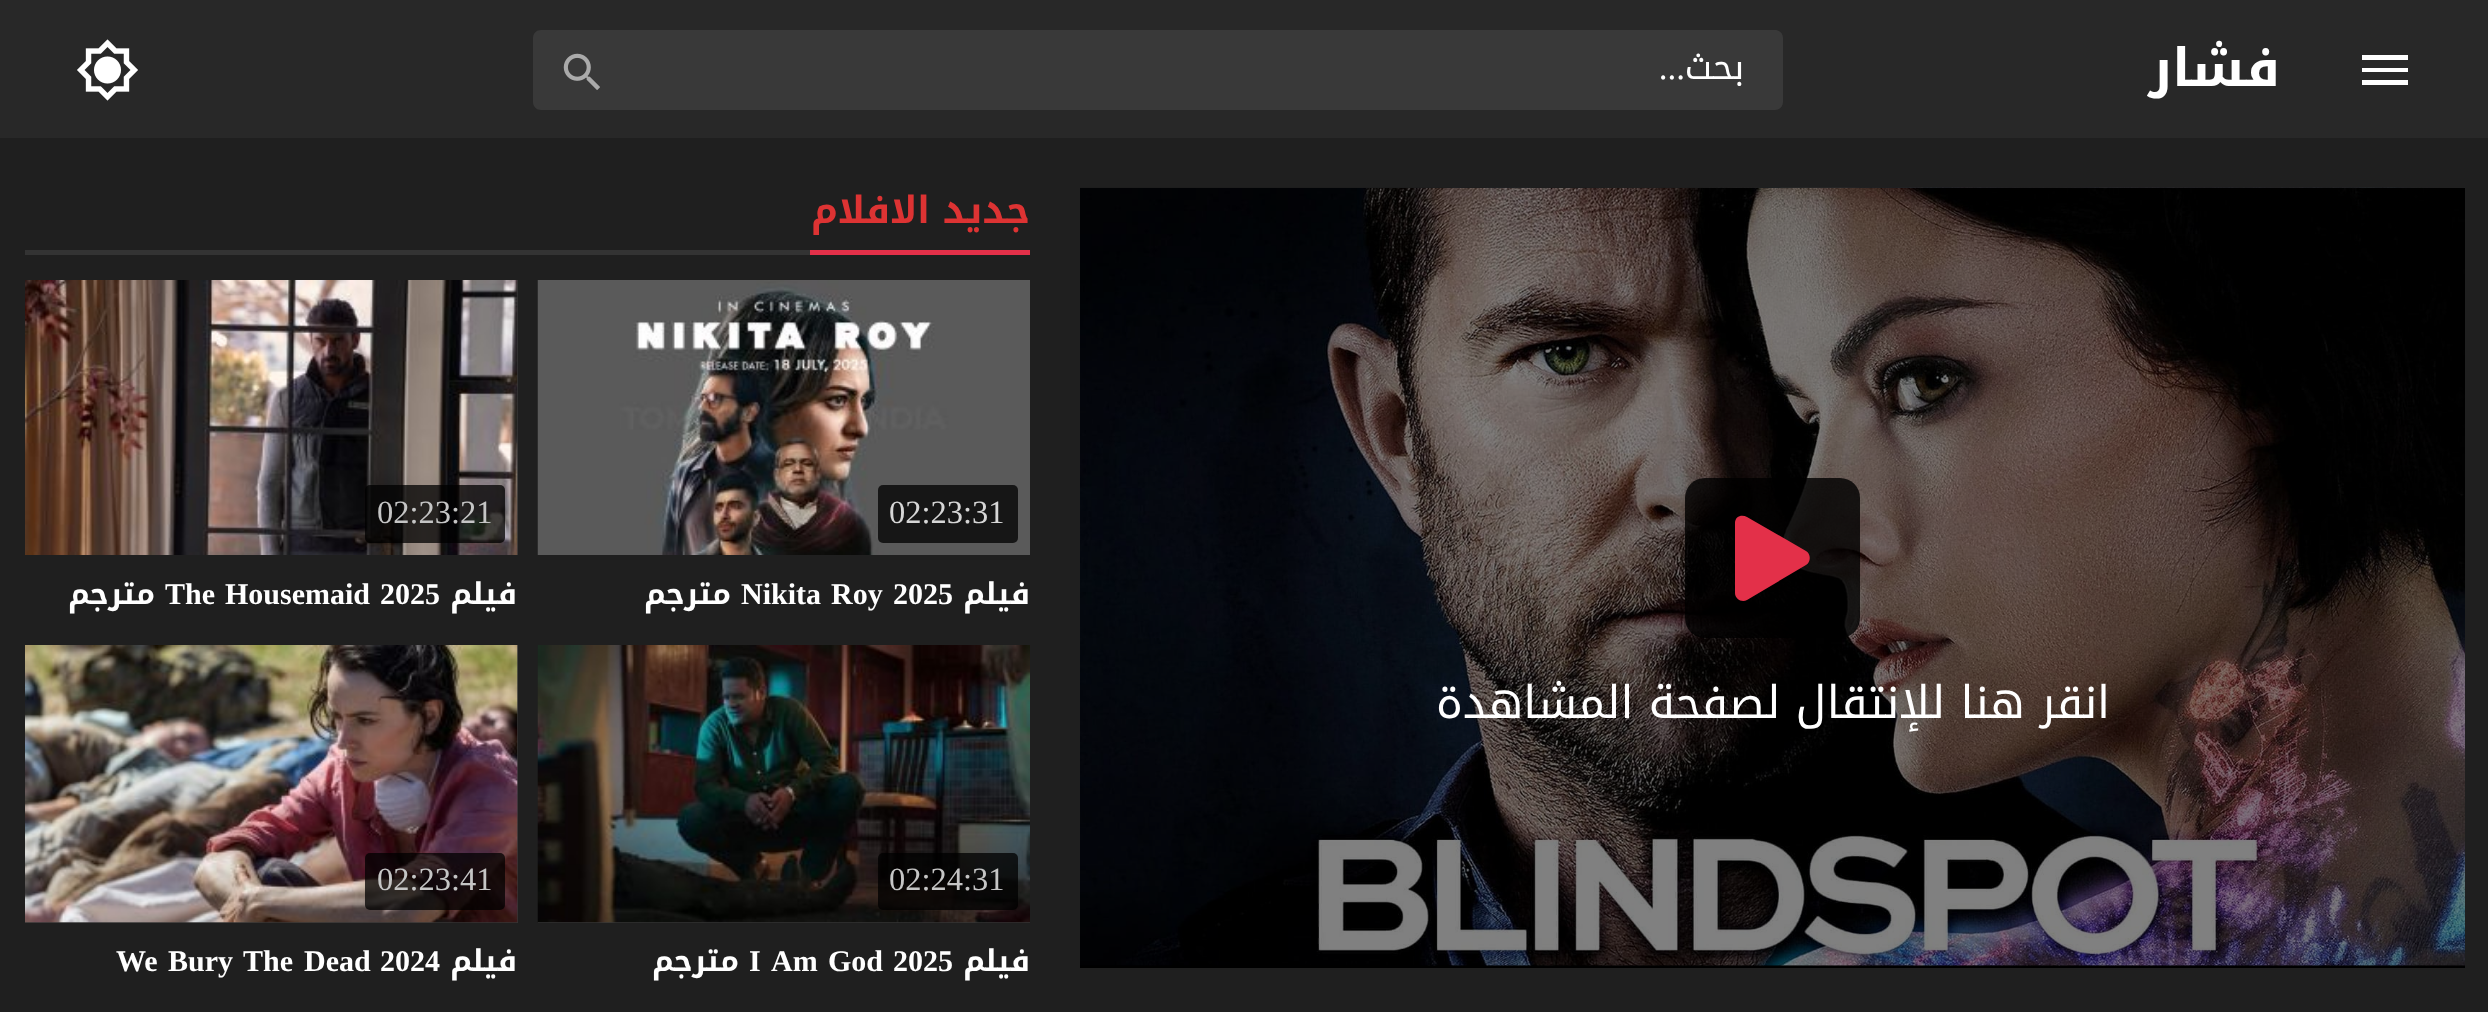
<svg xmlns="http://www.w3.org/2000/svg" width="2488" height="1012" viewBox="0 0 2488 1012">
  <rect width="100%" height="100%" fill="#1f1f1f"/>
  <rect x="0" y="0" width="2488" height="138" fill="#282828"/>
  <image x="77" y="39" width="61" height="62" href="img1.png"/>
  <path d="M541 30H658V110H541C536.5 110 533 106.5 533 102V38C533 33.5 536.5 30 541 30Z" fill="#393939"/>
  <image x="563" y="53" width="37" height="37" href="img2.png"/>
  <path d="M658 30H1775C1779.5 30 1783 33.5 1783 38V102C1783 106.5 1779.5 110 1775 110H658Z" fill="#393939"/>
  <text x="1685" y="79" font-family="Liberation Serif" font-size="35" direction="rtl" fill="#ffffff">...</text>
  <text x="1744" y="79" font-family="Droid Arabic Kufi" font-size="35" direction="rtl" fill="#ffffff">بحث</text>
  <text x="2280" y="86" font-family="Droid Arabic Kufi" font-size="52.5" font-weight="bold" direction="rtl" fill="#ffffff">فشار</text>
  <path d="M2362 55H2408V60H2362V55M2362 68H2408V72H2362V68M2362 80H2408V85H2362Z" fill="#ffffff"/>
  <rect x="25" y="250" width="785" height="5" fill="#333333"/>
  <rect x="810" y="250" width="220" height="5" fill="#e33049"/>
  <text x="1030" y="223" font-family="Droid Arabic Kufi" font-size="37.5" font-weight="bold" direction="rtl" fill="#dd3333">جديد الافلام</text>
  <rect x="517" y="280" width="1" height="275" fill="#363636"/>
  <image x="25" y="280" width="493" height="275" href="img3.png"/>
  <rect x="365" y="485" width="140" height="58" rx="5" fill="#000000" fill-opacity="0.75"/>
  <text x="377" y="523" font-family="Liberation Serif" font-size="32.5" fill="#c5c5c5">02:23:21</text>
  <text x="155" y="604" font-family="Droid Arabic Kufi" font-size="30" font-weight="bold" direction="rtl" fill="#ffffff">مترجم</text>
  <text x="165" y="604" font-family="Liberation Serif" font-size="30" font-weight="bold" fill="#ffffff">The</text>
  <text x="225" y="604" font-family="Liberation Serif" font-size="30" font-weight="bold" fill="#ffffff">Housemaid</text>
  <text x="380" y="604" font-family="Liberation Serif" font-size="30" font-weight="bold" fill="#ffffff">2025</text>
  <text x="517" y="604" font-family="Droid Arabic Kufi" font-size="30" font-weight="bold" direction="rtl" fill="#ffffff">فيلم</text>
  <image x="537" y="280" width="493" height="275" href="img4.png"/>
  <rect x="878" y="485" width="140" height="58" rx="5" fill="#000000" fill-opacity="0.75"/>
  <text x="889" y="523" font-family="Liberation Serif" font-size="32.5" fill="#d6d6d6">02:23:31</text>
  <text x="731" y="604" font-family="Droid Arabic Kufi" font-size="30" font-weight="bold" direction="rtl" fill="#ffffff">مترجم</text>
  <text x="741" y="604" font-family="Liberation Serif" font-size="30" font-weight="bold" fill="#ffffff">Nikita</text>
  <text x="831" y="604" font-family="Liberation Serif" font-size="30" font-weight="bold" fill="#ffffff">Roy</text>
  <text x="893" y="604" font-family="Liberation Serif" font-size="30" font-weight="bold" fill="#ffffff">2025</text>
  <text x="1030" y="604" font-family="Droid Arabic Kufi" font-size="30" font-weight="bold" direction="rtl" fill="#ffffff">فيلم</text>
  <rect x="25" y="645" width="493" height="278" fill="#363636"/>
  <image x="25" y="645" width="493" height="278" href="img5.png"/>
  <rect x="365" y="853" width="140" height="57" rx="5" fill="#000000" fill-opacity="0.75"/>
  <text x="377" y="890" font-family="Liberation Serif" font-size="32.5" fill="#c5c5c5">02:23:41</text>
  <text x="116" y="971" font-family="Liberation Serif" font-size="30" font-weight="bold" fill="#ffffff">We</text>
  <text x="168" y="971" font-family="Liberation Serif" font-size="30" font-weight="bold" fill="#ffffff">Bury</text>
  <text x="243" y="971" font-family="Liberation Serif" font-size="30" font-weight="bold" fill="#ffffff">The</text>
  <text x="304" y="971" font-family="Liberation Serif" font-size="30" font-weight="bold" fill="#ffffff">Dead</text>
  <text x="380" y="971" font-family="Liberation Serif" font-size="30" font-weight="bold" fill="#ffffff">2024</text>
  <text x="517" y="971" font-family="Droid Arabic Kufi" font-size="30" font-weight="bold" direction="rtl" fill="#ffffff">فيلم</text>
  <rect x="538" y="922" width="492" height="1" fill="#363636"/>
  <image x="537" y="645" width="493" height="278" href="img6.png"/>
  <rect x="878" y="853" width="140" height="57" rx="5" fill="#000000" fill-opacity="0.75"/>
  <text x="889" y="890" font-family="Liberation Serif" font-size="32.5" fill="#c5c5c5">02:24:31</text>
  <text x="739" y="971" font-family="Droid Arabic Kufi" font-size="30" font-weight="bold" direction="rtl" fill="#ffffff">مترجم</text>
  <text x="749" y="971" font-family="Liberation Serif" font-size="30" font-weight="bold" fill="#ffffff">I</text>
  <text x="771" y="971" font-family="Liberation Serif" font-size="30" font-weight="bold" fill="#ffffff">Am</text>
  <text x="828" y="971" font-family="Liberation Serif" font-size="30" font-weight="bold" fill="#ffffff">God</text>
  <text x="893" y="971" font-family="Liberation Serif" font-size="30" font-weight="bold" fill="#ffffff">2025</text>
  <text x="1030" y="971" font-family="Droid Arabic Kufi" font-size="30" font-weight="bold" direction="rtl" fill="#ffffff">فيلم</text>
  <rect x="1080" y="188" width="1385" height="780" fill="#000000"/>
  <image x="1080" y="187" width="1385" height="779" href="img7.png"/>
  <rect x="1685" y="478" width="175" height="160" rx="20" fill="#000000" fill-opacity="0.8"/>
  <path d="M1806 551L1747 517C1742 514 1735 516 1735 523V593C1735 599 1742 603 1747 600L1806 565C1811 562 1811 554 1806 551Z" fill="#e33049"/>
  <text x="2110" y="718" font-family="Droid Arabic Kufi" font-size="45" direction="rtl" fill="#ffffff">انقر هنا للإنتقال لصفحة المشاهدة</text>
</svg>
